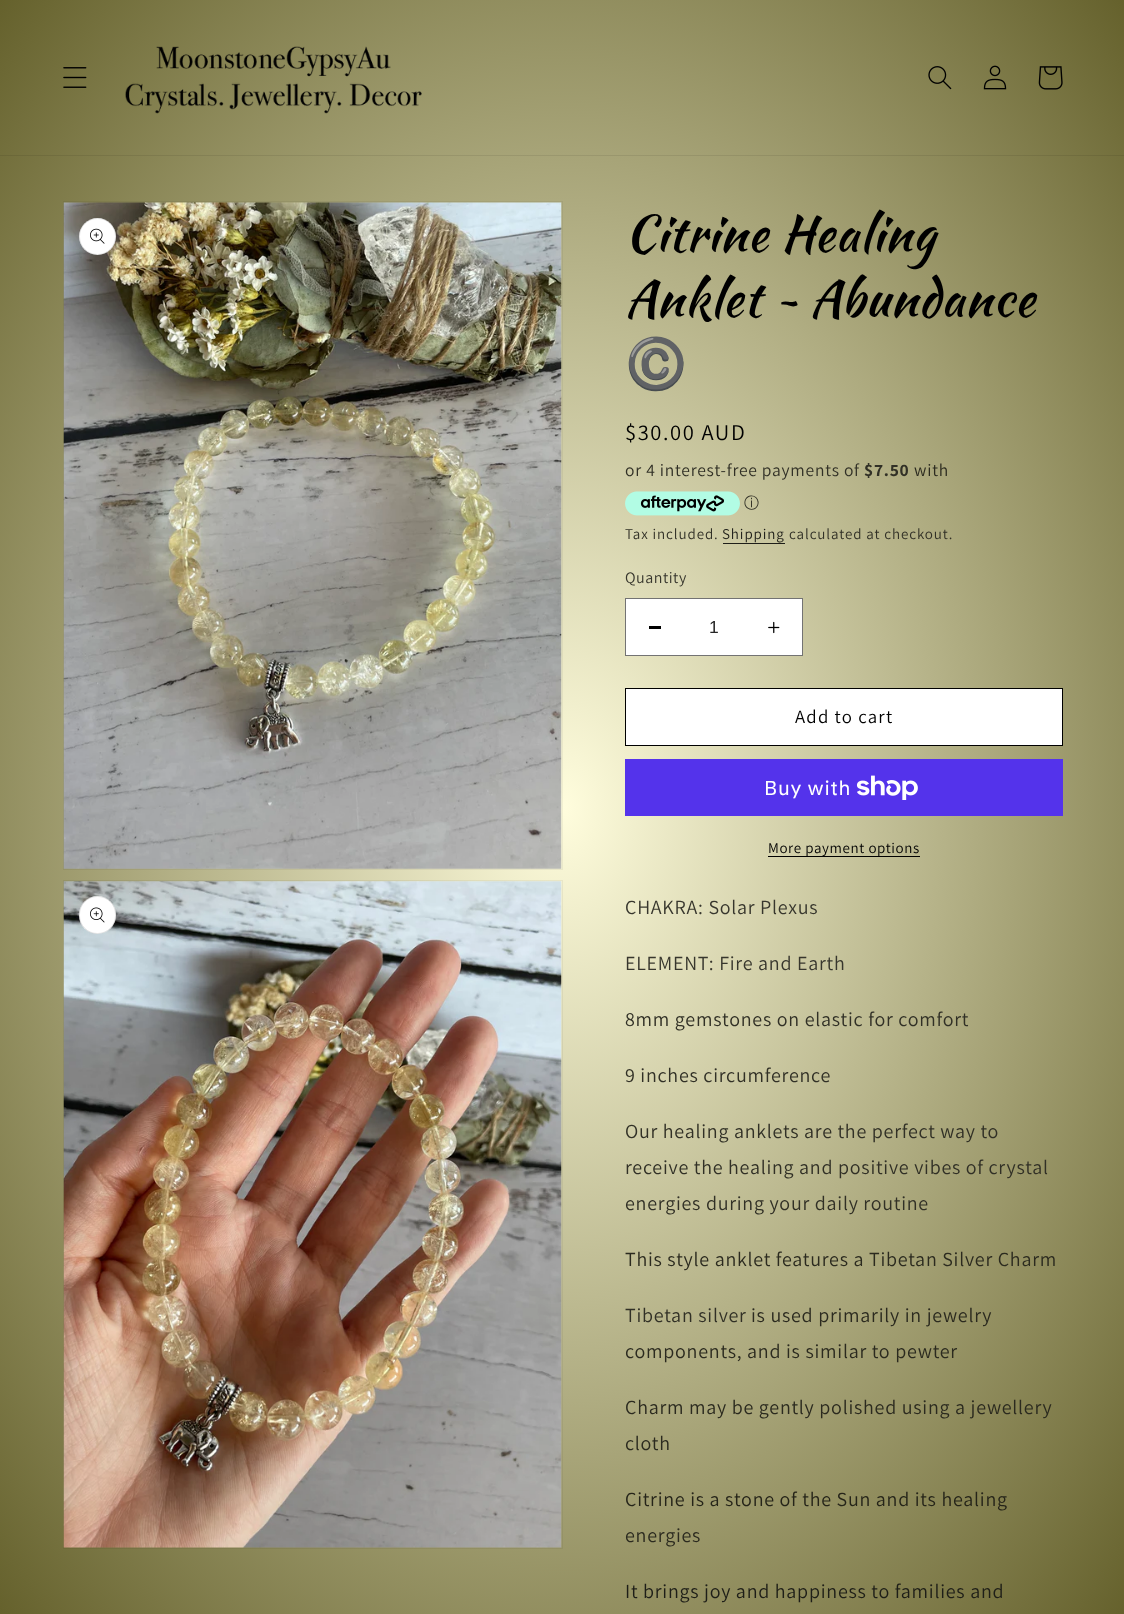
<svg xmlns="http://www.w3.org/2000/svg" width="1124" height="1614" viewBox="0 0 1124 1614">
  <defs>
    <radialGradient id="g1" gradientUnits="userSpaceOnUse" cx="0" cy="0" r="1" gradientTransform="matrix(795 0 0 1142 563 808)"><stop offset="0" stop-color="#fffddd"/><stop offset="1" stop-color="#65612c"/></radialGradient>
    <radialGradient id="g2" gradientUnits="userSpaceOnUse" cx="0" cy="0" r="1" gradientTransform="matrix(795 0 0 1142 563 808)"><stop offset="0" stop-color="#ebe9cb"/><stop offset="1" stop-color="#5d5928"/></radialGradient>
    <radialGradient id="g3" gradientUnits="userSpaceOnUse" cx="0" cy="0" r="1" gradientTransform="matrix(795 0 0 1142 563 808)"><stop offset="0" stop-color="#262621"/><stop offset="1" stop-color="#0f0f07"/></radialGradient>
  </defs>
  <rect width="100%" height="100%" fill="#ffffff"/>
  <rect x="0" y="0" width="1124" height="1614" fill="url(#g1)"/>
  <rect x="0" y="155" width="1124" height="1" fill="url(#g2)"/>
  <rect x="723" y="543" width="62" height="1" fill="url(#g3)"/>
  <image x="63" y="67" width="24" height="21" href="img1.png"/>
  <image x="125" y="46" width="297" height="68" href="img2.png"/>
  <image x="928" y="66" width="24" height="24" href="img3.png"/>
  <image x="983" y="65" width="24" height="25" href="img4.png"/>
  <image x="1038" y="66" width="25" height="24" href="img5.png"/>
  <rect x="63.5" y="201.5" width="499" height="668" fill="none" stroke="#000000" stroke-opacity="0.05"/>
  <image x="63" y="202" width="499" height="667" href="img6.png"/>
  <circle cx="97.5" cy="236.5" r="18.5" fill="#ffffff"/>
  <circle cx="97.5" cy="236.5" r="18" fill="none" stroke="#000000" stroke-opacity="0.1"/>
  <image x="90" y="228" width="15" height="16" href="img7.png"/>
  <rect x="63.5" y="880.5" width="499" height="668" fill="none" stroke="#000000" stroke-opacity="0.05"/>
  <image x="63" y="881" width="499" height="667" href="img8.png"/>
  <rect x="79" y="896" width="37" height="38" rx="18.5" fill="#ffffff"/>
  <rect x="79.5" y="896.5" width="36" height="37" rx="18" fill="none" stroke="#000000" stroke-opacity="0.1"/>
  <image x="90" y="907" width="15" height="16" href="img9.png"/>
  <text x="625" y="251" font-family="Kaushan Script" font-size="50" letter-spacing="0.75" fill="#000000">Citrine Healing</text>
  <text x="625" y="316" font-family="Kaushan Script" font-size="50" letter-spacing="0.75" fill="#000000">Anklet ~ Abundance</text>
  <text x="625" y="381" font-family="Noto Color Emoji" font-size="50" letter-spacing="0.75" fill="#000000">©️</text>
  <text x="625" y="440" font-family="Assistant" font-size="22.5" letter-spacing="1.6" fill="#000000">$30.00 AUD</text>
  <text x="625" y="476" font-family="Assistant" font-size="17.5" letter-spacing="0.75" fill="#313026">or 4 interest-free payments of</text>
  <text x="864" y="476" font-family="Assistant" font-size="17.5" font-weight="bold" letter-spacing="0.75" fill="#313026">$7.50</text>
  <text x="914" y="476" font-family="Assistant" font-size="17.5" letter-spacing="0.75" fill="#2b2a1f">with</text>
  <image x="625" y="491" width="115" height="25" href="img10.png"/>
  <text x="744" y="508" font-family="WenQuanYi Zen Hei" font-size="15" font-weight="500" fill="#313026">ⓘ</text>
  <text x="625" y="539" font-family="Assistant" font-size="15" letter-spacing="0.9" fill="#313026">Tax included.</text>
  <text x="722" y="539" font-family="Assistant" font-size="15" letter-spacing="0.9" fill="#1e1e18">Shipping</text>
  <text x="789" y="539" font-family="Assistant" font-size="15" letter-spacing="0.9" fill="#313026">calculated at checkout.</text>
  <text x="625" y="583" font-family="Assistant" font-size="16" letter-spacing="0.5" fill="#37362d">Quantity</text>
  <rect x="626" y="599" width="176" height="56" fill="#ffffff"/>
  <rect x="649" y="626" width="12" height="3" fill="#000000"/>
  <image x="768" y="621" width="12" height="13" href="img11.png"/>
  <rect x="625.5" y="598.5" width="177" height="57" fill="none" stroke="#737373"/>
  <text x="709" y="633" font-family="Liberation Sans" font-size="17.5" fill="#262626">1</text>
  <rect x="626" y="689" width="436" height="56" fill="#ffffff"/>
  <rect x="625.5" y="688.5" width="437" height="57" fill="none" stroke="#000000"/>
  <text x="795" y="723" font-family="Assistant" font-size="18.75" letter-spacing="1.25" fill="#000000">Add to cart</text>
  <rect x="625" y="759" width="438" height="57" fill="#5433eb"/>
  <text x="764" y="795" font-family="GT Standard" font-size="20" letter-spacing="0.75" fill="#ffffff">Buy with</text>
  <image x="856" y="775" width="62" height="25" href="img12.png"/>
  <rect x="768" y="856" width="152" height="1" fill="#000000"/>
  <text x="768" y="853" font-family="Assistant" font-size="15" letter-spacing="0.6" fill="#000000">More payment options</text>
  <text x="625" y="914" font-family="Assistant" font-size="20" letter-spacing="0.75" fill="#37362d">CHAKRA: Solar Plexus</text>
  <text x="625" y="970" font-family="Assistant" font-size="20" letter-spacing="0.75" fill="#37362d">ELEMENT: Fire and Earth</text>
  <text x="625" y="1026" font-family="Assistant" font-size="20" letter-spacing="0.75" fill="#313026">8mm gemstones on elastic for comfort</text>
  <text x="625" y="1082" font-family="Assistant" font-size="20" letter-spacing="0.75" fill="#313026">9 inches circumference</text>
  <text x="625" y="1138" font-family="Assistant" font-size="20" letter-spacing="0.75" fill="#313026">Our healing anklets are the perfect way to</text>
  <text x="625" y="1174" font-family="Assistant" font-size="20" letter-spacing="0.75" fill="#313026">receive the healing and positive vibes of crystal</text>
  <text x="625" y="1210" font-family="Assistant" font-size="20" letter-spacing="0.75" fill="#313026">energies during your daily routine</text>
  <text x="625" y="1266" font-family="Assistant" font-size="20" letter-spacing="0.75" fill="#2b2a1f">This style anklet features a Tibetan Silver Charm</text>
  <text x="625" y="1322" font-family="Assistant" font-size="20" letter-spacing="0.75" fill="#313026">Tibetan silver</text>
  <text x="751" y="1322" font-family="Assistant" font-size="20" letter-spacing="0.75" fill="#2b2a1f">is used primarily in jewelry</text>
  <text x="625" y="1358" font-family="Assistant" font-size="20" letter-spacing="0.75" fill="#2b2a1f">components, and is similar to pewter</text>
  <text x="625" y="1414" font-family="Assistant" font-size="20" letter-spacing="0.75" fill="#2b2a1f">Charm may be gently polished using a jewellery</text>
  <text x="625" y="1450" font-family="Assistant" font-size="20" letter-spacing="0.75" fill="#2b2a1f">cloth</text>
  <text x="625" y="1506" font-family="Assistant" font-size="20" letter-spacing="0.75" fill="#252419">Citrine is a stone of the Sun and its healing</text>
  <text x="625" y="1542" font-family="Assistant" font-size="20" letter-spacing="0.75" fill="#2b2a1f">energies</text>
  <text x="625" y="1598" font-family="Assistant" font-size="20" letter-spacing="0.75" fill="#1e1e18">It brings joy and happiness to families and</text>
</svg>
